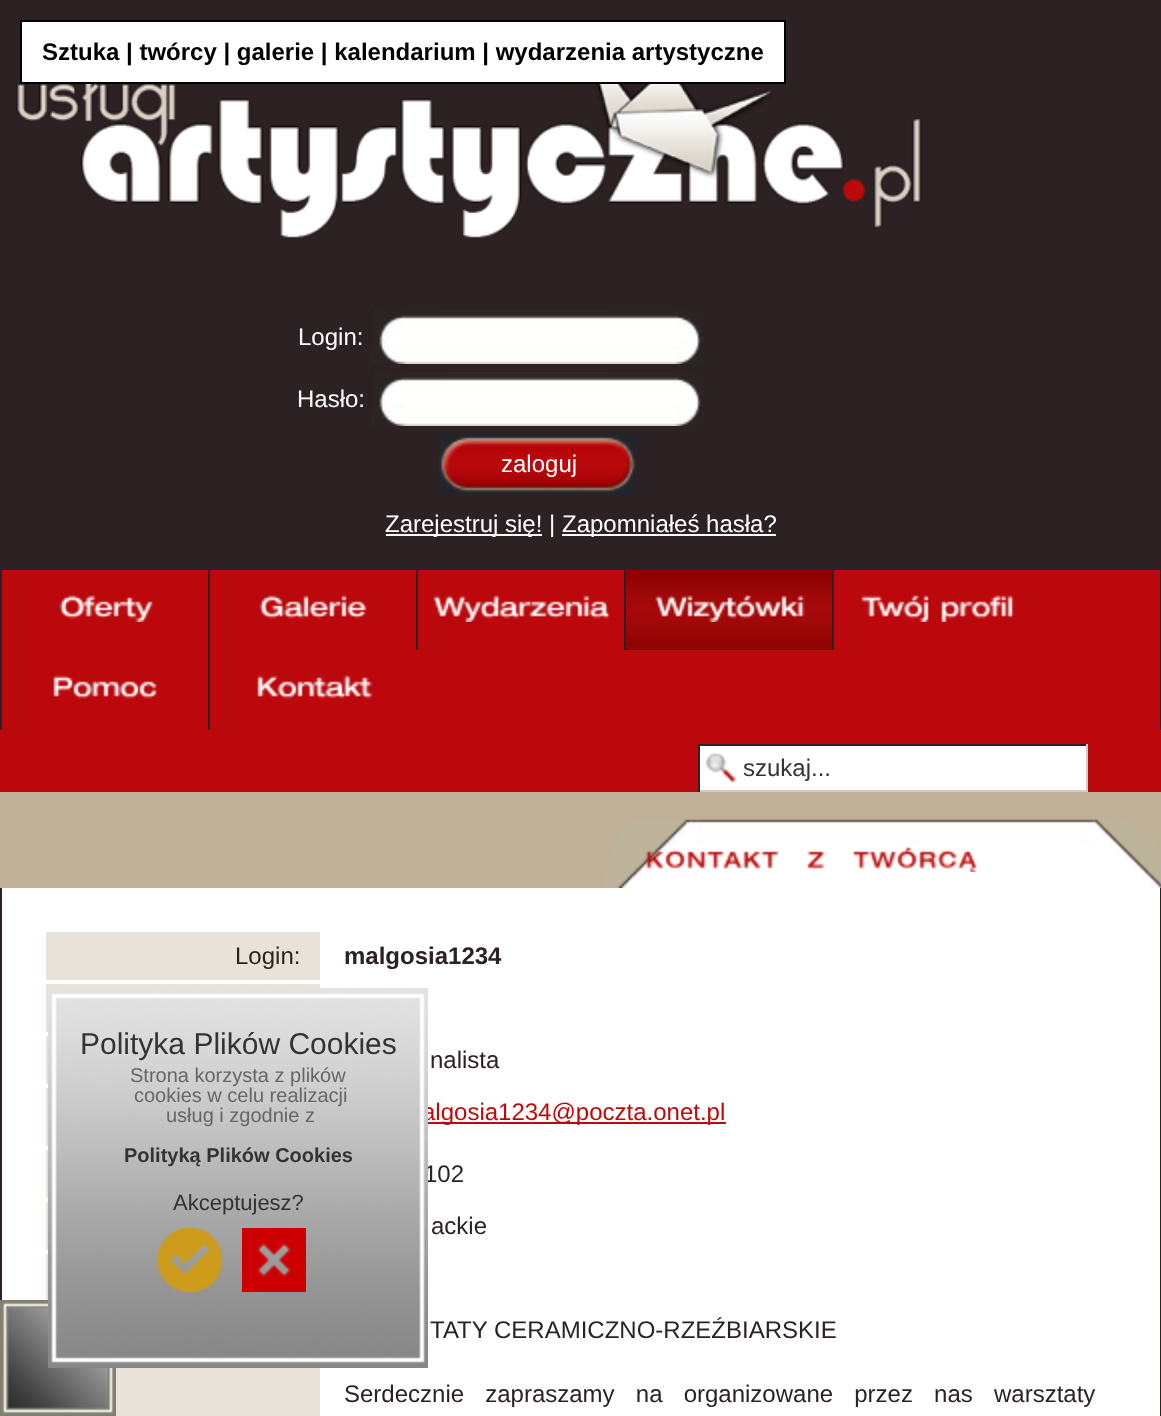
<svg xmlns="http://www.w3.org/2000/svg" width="1161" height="1416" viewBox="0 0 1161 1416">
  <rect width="100%" height="100%" fill="#bfb097"/>
  <rect x="0" y="0" width="1161" height="570" fill="#2c2223"/>
  <image x="16" y="37" width="906" height="201" href="img1.png"/>
  <rect x="21" y="21" width="764" height="62" fill="#ffffff" stroke="#000000" stroke-width="2"/>
  <text x="42" y="60" font-family="Liberation Sans" font-size="24" font-weight="bold" fill="#000000">Sztuka | twórcy | galerie | kalendarium | wydarzenia artystyczne</text>
  <text x="298" y="345" font-family="Liberation Sans" font-size="24" fill="#ffffff">Login:</text>
  <image x="372" y="310" width="332" height="54" href="img2.png"/>
  <text x="297" y="407" font-family="Liberation Sans" font-size="24" fill="#ffffff">Hasło:</text>
  <image x="372" y="372" width="332" height="54" href="img2.png"/>
  <image x="438" y="434" width="200" height="60" href="img3.png"/>
  <text x="501" y="472" font-family="Liberation Sans" font-size="24" fill="#ffffff">zaloguj</text>
  <rect x="386" y="534" width="156" height="2" fill="#ffffff"/>
  <text x="385" y="532" font-family="Liberation Sans" font-size="24" fill="#ffffff">Zarejestruj się! |</text>
  <rect x="562" y="534" width="214" height="2" fill="#ffffff"/>
  <text x="562" y="532" font-family="Liberation Sans" font-size="24" fill="#ffffff">Zapomniałeś hasła?</text>
  <rect x="0" y="570" width="1161" height="222" fill="#bb080c"/>
  <rect x="1160" y="570" width="1" height="160" fill="#2c2223"/>
  <rect x="0" y="570" width="2" height="160" fill="#2c2223"/>
  <image x="59" y="595" width="94" height="27" href="img4.png"/>
  <rect x="208" y="570" width="2" height="160" fill="#2c2223"/>
  <image x="259" y="595" width="108" height="24" href="img5.png"/>
  <rect x="416" y="570" width="2" height="80" fill="#2c2223"/>
  <image x="433" y="595" width="178" height="27" href="img6.png"/>
  <image x="626" y="570" width="206" height="80" href="img7.png"/>
  <rect x="624" y="570" width="2" height="80" fill="#2c2223"/>
  <image x="655" y="595" width="150" height="27" href="img8.png"/>
  <rect x="832" y="570" width="2" height="80" fill="#2c2223"/>
  <image x="861" y="595" width="68" height="27" href="img9.png"/>
  <image x="941" y="595" width="73" height="27" href="img10.png"/>
  <image x="53" y="675" width="104" height="24" href="img11.png"/>
  <image x="257" y="675" width="116" height="24" href="img12.png"/>
  <rect x="700" y="746" width="386" height="44" fill="#ffffff"/>
  <image x="706" y="752" width="31" height="31" href="img13.png"/>
  <rect x="698" y="744" width="390" height="2" fill="#2c2223"/>
  <rect x="1086" y="744" width="2" height="48" fill="#cccccc"/>
  <rect x="698" y="790" width="390" height="2" fill="#cccccc"/>
  <rect x="698" y="744" width="2" height="48" fill="#2c2223"/>
  <text x="743" y="776" font-family="Liberation Sans" font-size="24" fill="#333333">szukaj...</text>
  <image x="606" y="819" width="555" height="69" href="img14.png"/>
  <image x="645" y="849" width="134" height="20" href="img15.png"/>
  <image x="807" y="851" width="18" height="18" href="img16.png"/>
  <image x="852" y="847" width="125" height="25" href="img17.png"/>
  <rect x="2" y="888" width="1158" height="528" fill="#ffffff"/>
  <rect x="1160" y="888" width="1" height="528" fill="#2c2223"/>
  <rect x="0" y="888" width="2" height="412" fill="#2c2223"/>
  <rect x="46" y="932" width="274" height="48" fill="#e8e2d9"/>
  <text x="235" y="964" font-family="Liberation Sans" font-size="24" fill="#2c2223">Login:</text>
  <text x="344" y="964" font-family="Liberation Sans" font-size="24" font-weight="bold" fill="#2c2223">malgosia1234</text>
  <rect x="46" y="984" width="274" height="48" fill="#e8e2d9"/>
  <rect x="46" y="1036" width="2" height="48" fill="#e8e2d9"/>
  <text x="430" y="1068" font-family="Liberation Sans" font-size="24" fill="#2c2223">nalista</text>
  <rect x="46" y="1088" width="2" height="58" fill="#e8e2d9"/>
  <rect x="428" y="1122" width="298" height="2" fill="#ba0b0b"/>
  <text x="422" y="1120" font-family="Liberation Sans" font-size="24" fill="#ba0b0b">algosia1234@poczta.onet.pl</text>
  <rect x="46" y="1150" width="2" height="48" fill="#e8e2d9"/>
  <text x="424" y="1182" font-family="Liberation Sans" font-size="24" fill="#2c2223">102</text>
  <rect x="46" y="1202" width="2" height="48" fill="#e8e2d9"/>
  <text x="431" y="1234" font-family="Liberation Sans" font-size="24" fill="#2c2223">ackie</text>
  <rect x="46" y="1254" width="2" height="46" fill="#e8e2d9"/>
  <rect x="116" y="1368" width="204" height="48" fill="#e8e2d9"/>
  <text x="430" y="1338" font-family="Liberation Sans" font-size="24" fill="#2c2223">TATY CERAMICZNO-RZEŹBIARSKIE</text>
  <text x="344" y="1402" word-spacing="14.5" font-family="Liberation Sans" font-size="24" fill="#2c2223">Serdecznie zapraszamy na organizowane przez nas warsztaty</text>
  <image x="0" y="1300" width="116" height="116" href="img21.png"/>
  <image x="48" y="988" width="380" height="380" href="img18.png"/>
  <text x="80" y="1054" font-family="Liberation Sans" font-size="30" fill="#333333">Polityka Plików Cookies</text>
  <text x="130" y="1082" font-family="Liberation Sans" font-size="20" fill="#666666">Strona korzysta z plików</text>
  <text x="134" y="1102" font-family="Liberation Sans" font-size="20" fill="#666666">cookies w celu realizacji</text>
  <text x="166" y="1122" font-family="Liberation Sans" font-size="20" fill="#666666">usług i zgodnie z</text>
  <text x="124" y="1162" font-family="Liberation Sans" font-size="20" font-weight="bold" fill="#333333">Polityką Plików Cookies</text>
  <text x="173" y="1210" font-family="Liberation Sans" font-size="22" fill="#333333">Akceptujesz?</text>
  <image x="158" y="1228" width="64" height="64" href="img19.png"/>
  <image x="242" y="1228" width="64" height="64" href="img20.png"/>
</svg>
